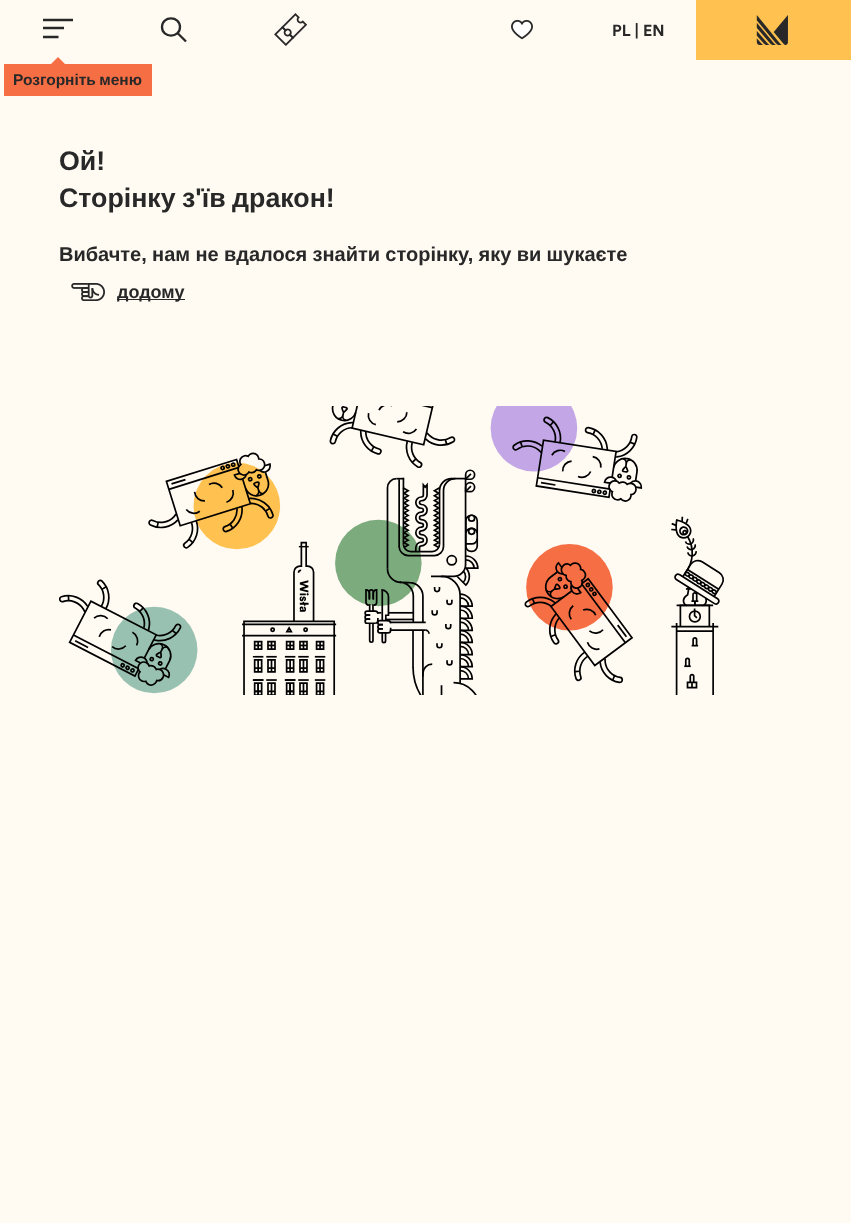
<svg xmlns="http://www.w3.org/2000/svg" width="851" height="1223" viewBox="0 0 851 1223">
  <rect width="100%" height="100%" fill="#fffaf2"/>
  <path d="M43 28H64M43 37H58.5M43 20H73" fill="none" stroke="#282828" stroke-width="2.7"/>
  <path d="M180 27C180 38.5 162 38.5 162 27C162 15.5 180 15.5 180 27ZM177.5 33L186 41.5" fill="none" stroke="#282828" stroke-width="2.3"/>
  <image x="274" y="13" width="34" height="33" href="img1.png"/>
  <image x="511" y="19" width="22" height="21" href="img2.png"/>
  <text x="612" y="36" font-family="Circular" font-size="16" font-weight="bold" fill="#282828">PL | EN</text>
  <rect x="4" y="64" width="148" height="32" fill="#f66e44"/>
  <path d="M66 65H50L58 57Z" fill="#f66e44"/>
  <text x="13" y="85" word-spacing="-1" font-family="Liberation Sans" font-size="15.5" font-weight="bold" fill="#282828">Розгорніть меню</text>
  <rect x="696" y="0" width="155" height="60" fill="#ffc14f"/>
  <image x="756" y="15" width="32" height="30" href="img3.png"/>
  <text x="59" y="170" font-family="Liberation Sans" font-size="26.75" font-weight="bold" fill="#282828">Ой!</text>
  <text x="59" y="207" word-spacing="-1" font-family="Liberation Sans" font-size="26.75" font-weight="bold" fill="#282828">Сторінку з'їв дракон!</text>
  <text x="59" y="261" word-spacing="-0.25" font-family="Liberation Sans" font-size="20" font-weight="bold" fill="#282828">Вибачте, нам не вдалося знайти сторінку, яку ви шукаєте</text>
  <image x="71" y="283" width="34" height="18" href="img4.png"/>
  <rect x="117" y="299" width="68" height="1" fill="#282828"/>
  <text x="117" y="298" font-family="Liberation Sans" font-size="18" font-weight="bold" fill="#282828">додому</text>
  <image x="59" y="406" width="665" height="289" href="img5.png"/>
</svg>
